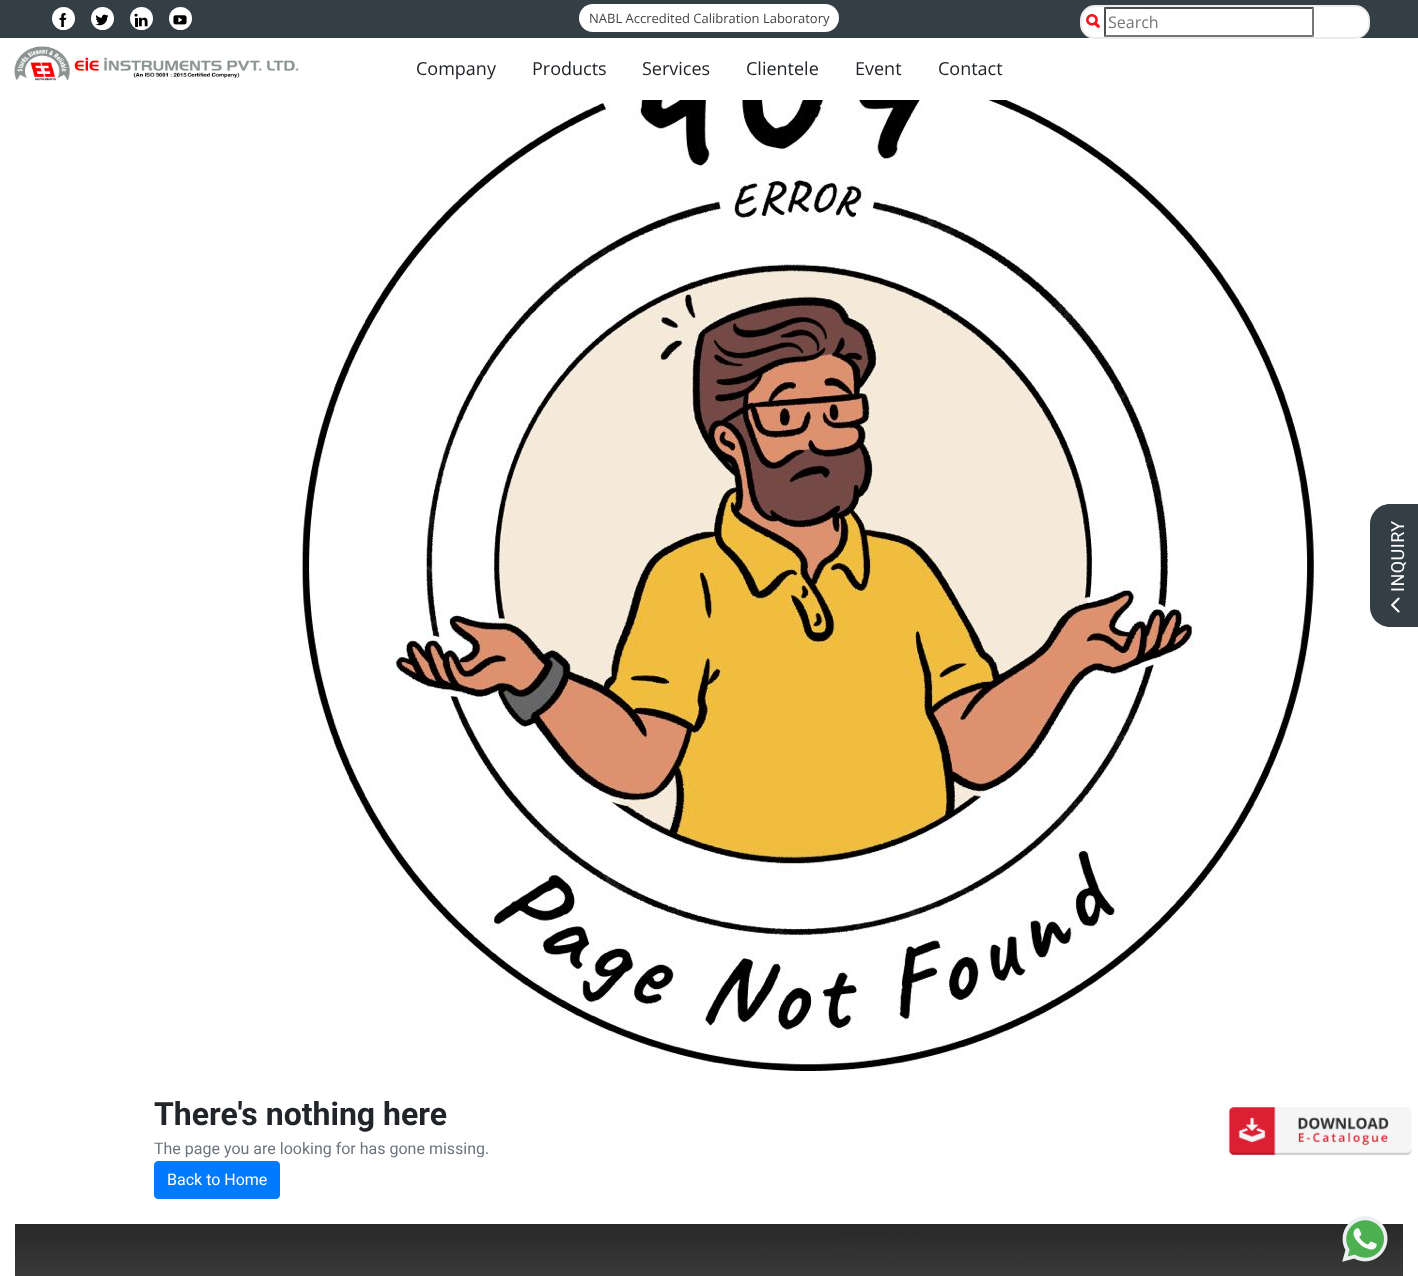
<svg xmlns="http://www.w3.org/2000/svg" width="1418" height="1276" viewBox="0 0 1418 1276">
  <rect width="100%" height="100%" fill="#ffffff"/>
  <rect x="0" y="0" width="1418" height="38" fill="#333e45"/>
  <circle cx="63.5" cy="18.5" r="11.5" fill="#ffffff"/>
  <image x="59" y="13" width="8" height="14" href="img1.png"/>
  <circle cx="102.5" cy="18.5" r="11.5" fill="#ffffff"/>
  <image x="95" y="14" width="14" height="12" href="img2.png"/>
  <circle cx="141.5" cy="18.5" r="11.5" fill="#ffffff"/>
  <image x="134" y="13" width="14" height="14" href="img3.png"/>
  <circle cx="180.5" cy="18.5" r="11.5" fill="#ffffff"/>
  <image x="173" y="15" width="14" height="10" href="img4.png"/>
  <rect x="579" y="4" width="260" height="28" rx="14" fill="#ffffff"/>
  <text x="589" y="23" font-family="Open Sans" font-size="13" fill="#444444">NABL Accredited Calibration Laboratory</text>
  <rect x="1081" y="6" width="288" height="32" rx="14" fill="#ffffff" stroke="#ececec" stroke-width="2"/>
  <image x="1086" y="14" width="14" height="14" href="img5.png"/>
  <path d="M1104 7H1314L1312 9H1106Z" fill="#4f4f4f"/>
  <path d="M1314 7V37L1312 35V9Z" fill="#767676"/>
  <path d="M1314 37H1104L1106 35H1312Z" fill="#767676"/>
  <path d="M1104 37V7L1106 9V35Z" fill="#4f4f4f"/>
  <text x="1108" y="28" font-family="Open Sans" font-size="16" fill="#757575">Search</text>
  <image x="14" y="46" width="285" height="35" href="img6.png"/>
  <text x="416" y="75" font-family="Open Sans" font-size="18" fill="#212529">Company</text>
  <text x="532" y="75" font-family="Open Sans" font-size="18" fill="#212529">Products</text>
  <text x="642" y="75" font-family="Open Sans" font-size="18" fill="#212529">Services</text>
  <text x="746" y="75" font-family="Open Sans" font-size="18" fill="#212529">Clientele</text>
  <text x="855" y="75" font-family="Open Sans" font-size="18" fill="#212529">Event</text>
  <text x="938" y="75" font-family="Open Sans" font-size="18" fill="#212529">Contact</text>
  <path d="M1370 607V524C1370 513 1379 504 1390 504H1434V627H1390C1379 627 1370 618 1370 607Z" fill="#333e45"/>
  <text x="1404" y="592" transform="rotate(-90 1404 592)" font-family="Roboto" font-size="18" letter-spacing="0.5" fill="#ffffff">INQUIRY</text>
  <image x="1391" y="597" width="9" height="16" href="img7.png"/>
  <image x="299" y="100" width="1015" height="971" href="img8.png"/>
  <text x="154" y="1125" font-family="Roboto" font-size="32" font-weight="bold" fill="#212529">There's nothing here</text>
  <text x="154" y="1154" font-family="Roboto" font-size="16" fill="#6c757d">The page you are looking for has gone missing.</text>
  <rect x="154.5" y="1161.5" width="125" height="37" rx="3.5" fill="#007bff" stroke="#007bff"/>
  <text x="167" y="1185" font-family="Roboto" font-size="16" fill="#ffffff">Back to Home</text>
  <image x="1228" y="1107" width="184" height="49" href="img9.png"/>
  <image x="15" y="1224" width="1388" height="52" href="img10.png"/>
  <image x="1342" y="1216" width="46" height="46" href="img11.png"/>
</svg>
